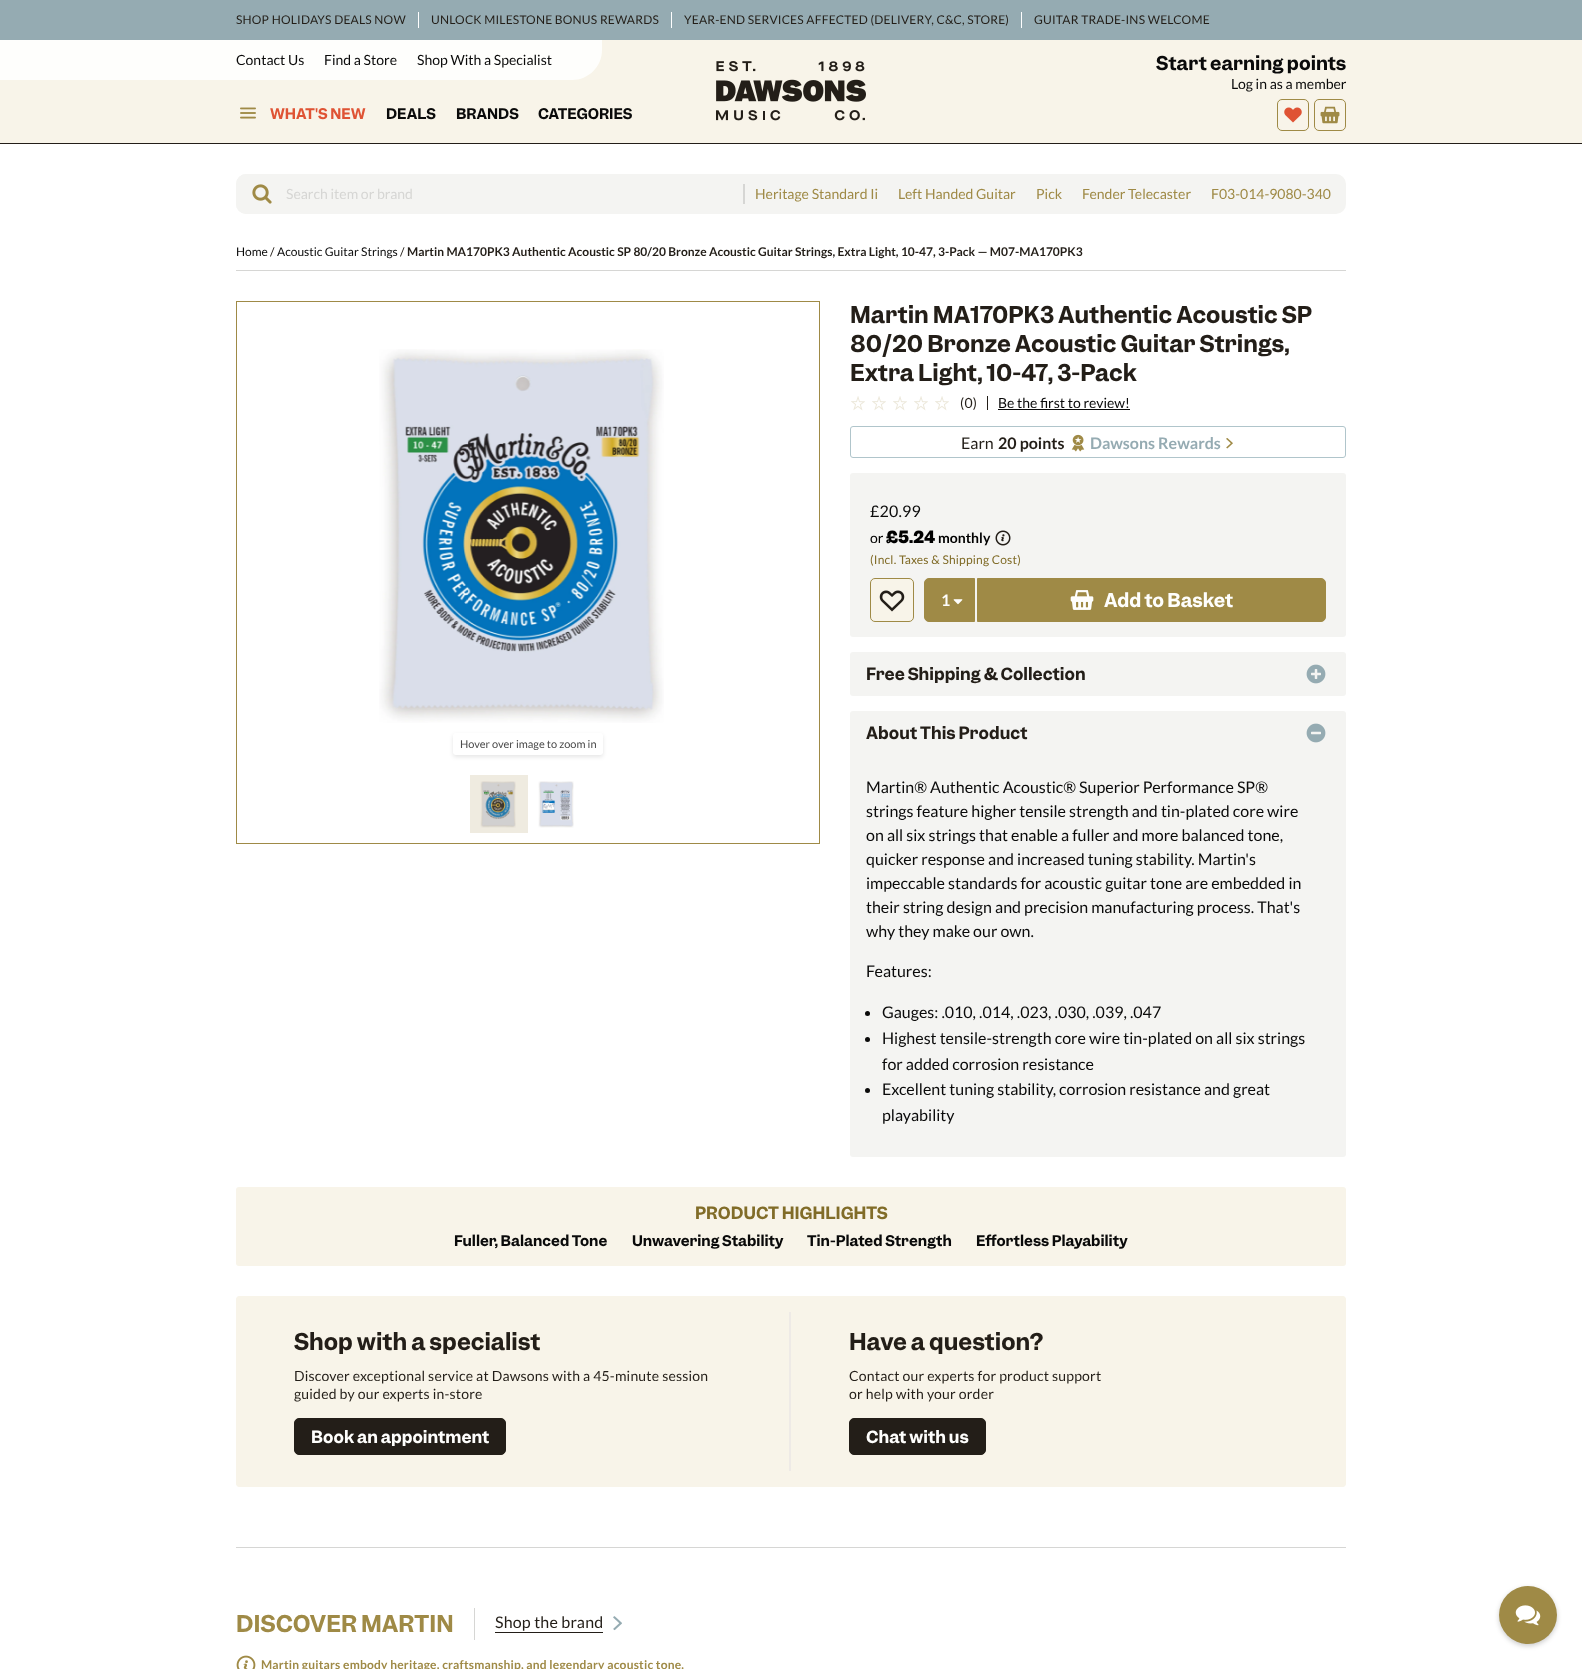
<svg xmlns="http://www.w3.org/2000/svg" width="1582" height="1669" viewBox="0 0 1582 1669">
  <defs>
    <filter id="blur1" x="-50%" y="-200%" width="200%" height="500%"><feGaussianBlur stdDeviation="2"/></filter>
    <filter id="blur2" x="-50%" y="-200%" width="200%" height="500%"><feGaussianBlur stdDeviation="2.5"/></filter>
  </defs>
  <rect width="100%" height="100%" fill="#ffffff"/>
  <rect x="470" y="775" width="58" height="58" fill="#efebe0"/>
  <rect x="0" y="0" width="1582" height="40" fill="#95abb2"/>
  <rect x="418" y="12" width="1" height="16" fill="#ffffff"/>
  <text x="236" y="24" font-family="Lato" font-size="12" letter-spacing="0.2" fill="#231e18">SHOP HOLIDAYS DEALS NOW</text>
  <rect x="671" y="12" width="1" height="16" fill="#ffffff"/>
  <text x="431" y="24" font-family="Lato" font-size="12" letter-spacing="0.2" fill="#231e18">UNLOCK MILESTONE BONUS REWARDS</text>
  <rect x="1021" y="12" width="1" height="16" fill="#ffffff"/>
  <text x="684" y="24" font-family="Lato" font-size="12" letter-spacing="0.2" fill="#231e18">YEAR-END SERVICES AFFECTED (DELIVERY, C&amp;C, STORE)</text>
  <text x="1034" y="24" font-family="Lato" font-size="12" letter-spacing="0.2" fill="#231e18">GUITAR TRADE-INS WELCOME</text>
  <rect x="0" y="40" width="1582" height="103" fill="#f8f4e9"/>
  <rect x="0" y="143" width="1582" height="1" fill="#231e18"/>
  <rect x="0" y="40" width="236" height="40" fill="#fefefc"/>
  <path d="M236 40H602V50C602 66.5 588.5 80 572 80H236Z" fill="#fefefc"/>
  <text x="236" y="65" font-family="Lato" font-size="14" fill="#0a0a0a">Contact Us</text>
  <text x="324" y="65" font-family="Lato" font-size="14" fill="#0a0a0a">Find a Store</text>
  <text x="417" y="65" font-family="Lato" font-size="14" fill="#0a0a0a">Shop With a Specialist</text>
  <image x="240" y="107" width="16" height="12" href="img1.png"/>
  <text x="270" y="119" font-family="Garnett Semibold" font-size="14" font-weight="600" fill="#df5334">WHAT'S NEW</text>
  <text x="386" y="119" font-family="Garnett Semibold" font-size="14" font-weight="600" fill="#0a0a0a">DEALS</text>
  <text x="456" y="119" font-family="Garnett Semibold" font-size="14" font-weight="600" fill="#0a0a0a">BRANDS</text>
  <text x="538" y="119" font-family="Garnett Semibold" font-size="14" font-weight="600" fill="#0a0a0a">CATEGORIES</text>
  <image x="716" y="61" width="150" height="60" href="img2.png"/>
  <text x="1156" y="70" font-family="Garnett Semibold" font-size="18" font-weight="600" fill="#0a0a0a">Start earning points</text>
  <text x="1231" y="89" font-family="Lato" font-size="14" fill="#0a0a0a">Log in as a member</text>
  <rect x="1277.5" y="99.5" width="31" height="31" rx="4.5" fill="none" stroke="#9f8a46"/>
  <image x="1284" y="107" width="18" height="16" href="img3.png"/>
  <rect x="1314.5" y="99.5" width="31" height="31" rx="4.5" fill="none" stroke="#9f8a46"/>
  <image x="1320" y="106" width="20" height="18" href="img4.png"/>
  <rect x="236" y="174" width="1110" height="40" rx="10" fill="#f4f4f2"/>
  <rect x="236" y="174" width="507" height="40" rx="10" fill="#f4f4f2"/>
  <image x="252" y="184" width="20" height="20" href="img5.png"/>
  <text x="286" y="199" font-family="Lato" font-size="14" fill="#d6d6d4">Search item or brand</text>
  <rect x="743" y="184" width="2" height="20" fill="#d6d6d4"/>
  <text x="755" y="199" font-family="Lato" font-size="14" fill="#9f8a46">Heritage Standard Ii</text>
  <text x="898" y="199" font-family="Lato" font-size="14" fill="#9f8a46">Left Handed Guitar</text>
  <text x="1036" y="199" font-family="Lato" font-size="14" fill="#9f8a46">Pick</text>
  <text x="1082" y="199" font-family="Lato" font-size="14" fill="#9f8a46">Fender Telecaster</text>
  <text x="1211" y="199" font-family="Lato" font-size="14" fill="#9f8a46">F03-014-9080-340</text>
  <rect x="236" y="270" width="1110" height="1" fill="#d6d6d4"/>
  <text x="236" y="256" font-family="Lato" font-size="12" fill="#0a0a0a">Home</text>
  <text x="270" y="256" font-family="Lato" font-size="12" fill="#231e18">/</text>
  <text x="277" y="256" font-family="Lato" font-size="12" fill="#0a0a0a">Acoustic Guitar Strings</text>
  <text x="400" y="256" font-family="Lato" font-size="12" fill="#231e18">/</text>
  <text x="407" y="256" font-family="Lato" font-size="12" font-weight="bold" fill="#231e18">Martin MA170PK3 Authentic Acoustic SP 80/20 Bronze Acoustic Guitar Strings, Extra Light, 10-47, 3-Pack — M07-MA170PK3</text>
  <rect x="236.5" y="301.5" width="583" height="542" fill="none" stroke="#9f8a46"/>
  <image x="379" y="349" width="285" height="374" href="img6.png"/>
  <rect x="453" y="735" width="150" height="22" rx="3" fill="#000000" fill-opacity="0.1" filter="url(#blur1)"/>
  <rect x="453" y="733" width="150" height="22" rx="3" fill="#ffffff"/>
  <text x="460" y="748" font-family="Lato" font-size="11" fill="#4a4a4a">Hover over image to zoom in</text>
  <image x="480" y="781" width="36" height="47" href="img7.png"/>
  <image x="538" y="781" width="36" height="47" href="img8.png"/>
  <text x="850" y="323" font-family="Garnett Semibold" font-size="22" font-weight="600" fill="#231e18">Martin MA170PK3 Authentic Acoustic SP</text>
  <text x="850" y="352" font-family="Garnett Semibold" font-size="22" font-weight="600" fill="#231e18">80/20 Bronze Acoustic Guitar Strings,</text>
  <text x="850" y="381" font-family="Garnett Semibold" font-size="22" font-weight="600" fill="#231e18">Extra Light, 10-47, 3-Pack</text>
  <image x="851" y="396" width="14" height="15" href="img9.png"/>
  <image x="872" y="396" width="14" height="15" href="img9.png"/>
  <image x="893" y="396" width="14" height="15" href="img9.png"/>
  <image x="914" y="396" width="14" height="15" href="img9.png"/>
  <image x="935" y="396" width="14" height="15" href="img9.png"/>
  <rect x="987" y="396" width="1" height="14" fill="#231e18"/>
  <text x="960" y="408" font-family="Lato" font-size="14" letter-spacing="0.2" fill="#231e18">(0)</text>
  <text x="998" y="408" font-family="Lato" font-size="14" fill="#0a0a0a">Be the first to review!</text>
  <rect x="998" y="409" width="132" height="1" fill="#0a0a0a"/>
  <rect x="850.5" y="426.5" width="495" height="31" rx="2.5" fill="none" stroke="#b0c5cb"/>
  <text x="961" y="449" font-family="Lato" font-size="16" fill="#231e18">Earn</text>
  <text x="998" y="449" font-family="Lato" font-size="16" font-weight="bold" fill="#231e18">20 points</text>
  <image x="1071" y="434" width="14" height="18" href="img10.png"/>
  <text x="1090" y="449" font-family="Lato" font-size="16" font-weight="bold" fill="#95abb2">Dawsons Rewards</text>
  <image x="1226" y="438" width="7" height="11" href="img11.png"/>
  <rect x="850" y="473" width="496" height="164" rx="3" fill="#f4f4f2"/>
  <text x="870" y="517" font-family="Lato" font-size="16" letter-spacing="0.2" fill="#0a0a0a">£20.99</text>
  <text x="870" y="543" font-family="Lato" font-size="14" fill="#000000">or</text>
  <text x="886" y="543" font-family="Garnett" font-size="16" font-weight="bold" fill="#000000">£5.24</text>
  <text x="938" y="543" font-family="Lato" font-size="14" font-weight="bold" fill="#000000">monthly</text>
  <image x="995" y="530" width="16" height="16" href="img12.png"/>
  <text x="870" y="564" font-family="Lato" font-size="12" letter-spacing="0.2" fill="#816c28">(Incl. Taxes &amp; Shipping Cost)</text>
  <rect x="870.5" y="578.5" width="43" height="43" rx="4.5" fill="#f8f4e9" stroke="#9f8a46"/>
  <image x="879" y="590" width="26" height="22" href="img13.png"/>
  <path d="M929 578.5H974.5V621.5H929C926.5 621.5 924.5 619.5 924.5 617V583C924.5 580.5 926.5 578.5 929 578.5Z" fill="#9f8a46" stroke="#9f8a46"/>
  <text x="941" y="606" font-family="Lato" font-size="16" font-weight="bold" fill="#fefefc">1</text>
  <image x="953" y="599" width="10" height="6" href="img14.png"/>
  <path d="M977.5 578.5H1321C1323.5 578.5 1325.5 580.5 1325.5 583V617C1325.5 619.5 1323.5 621.5 1321 621.5H977.5Z" fill="#9f8a46" stroke="#9f8a46"/>
  <image x="1070" y="590" width="24" height="20" href="img15.png"/>
  <text x="1104" y="607" font-family="Garnett Semibold" font-size="18" font-weight="600" fill="#fefefc">Add to Basket</text>
  <rect x="850" y="652" width="496" height="44" rx="3" fill="#f4f4f2"/>
  <text x="866" y="680" font-family="Garnett Semibold" font-size="16" font-weight="600" fill="#231e18">Free Shipping &amp; Collection</text>
  <image x="1306" y="664" width="20" height="20" href="img16.png"/>
  <rect x="850" y="711" width="496" height="446" rx="3" fill="#f4f4f2"/>
  <text x="866" y="739" font-family="Garnett Semibold" font-size="16" font-weight="600" fill="#231e18">About This Product</text>
  <image x="1306" y="723" width="20" height="20" href="img17.png"/>
  <text x="866" y="793" font-family="Lato" font-size="16" fill="#0a0a0a">Martin® Authentic Acoustic® Superior Performance SP®</text>
  <text x="866" y="817" font-family="Lato" font-size="16" fill="#0a0a0a">strings feature higher tensile strength and tin-plated core wire</text>
  <text x="866" y="841" font-family="Lato" font-size="16" fill="#0a0a0a">on all six strings that enable a fuller and more balanced tone,</text>
  <text x="866" y="865" font-family="Lato" font-size="16" fill="#0a0a0a">quicker response and increased tuning stability. Martin's</text>
  <text x="866" y="889" font-family="Lato" font-size="16" fill="#0a0a0a">impeccable standards for acoustic guitar tone are embedded in</text>
  <text x="866" y="913" font-family="Lato" font-size="16" fill="#0a0a0a">their string design and precision manufacturing process. That's</text>
  <text x="866" y="937" font-family="Lato" font-size="16" fill="#0a0a0a">why they make our own.</text>
  <text x="866" y="977" font-family="Lato" font-size="16" fill="#0a0a0a">Features:</text>
  <circle cx="867.5" cy="1013.5" r="2.5" fill="#0a0a0a"/>
  <text x="882" y="1018" font-family="Lato" font-size="16" fill="#0a0a0a">Gauges: .010, .014, .023, .030, .039, .047</text>
  <circle cx="867.5" cy="1039.5" r="2.5" fill="#0a0a0a"/>
  <text x="882" y="1044" font-family="Lato" font-size="16" fill="#0a0a0a">Highest tensile-strength core wire tin-plated on all six strings</text>
  <text x="882" y="1070" font-family="Lato" font-size="16" fill="#0a0a0a">for added corrosion resistance</text>
  <circle cx="867.5" cy="1090.5" r="2.5" fill="#0a0a0a"/>
  <text x="882" y="1095" font-family="Lato" font-size="16" fill="#0a0a0a">Excellent tuning stability, corrosion resistance and great</text>
  <text x="882" y="1121" font-family="Lato" font-size="16" fill="#0a0a0a">playability</text>
  <rect x="236" y="1187" width="1110" height="79" rx="3" fill="#f8f4e9"/>
  <text x="695" y="1219" font-family="Garnett Semibold" font-size="16" font-weight="600" fill="#816c28">PRODUCT HIGHLIGHTS</text>
  <text x="454" y="1246" font-family="Garnett Semibold" font-size="14" font-weight="600" fill="#0a0a0a">Fuller, Balanced Tone</text>
  <text x="632" y="1246" font-family="Garnett Semibold" font-size="14" font-weight="600" fill="#0a0a0a">Unwavering Stability</text>
  <text x="807" y="1246" font-family="Garnett Semibold" font-size="14" font-weight="600" fill="#0a0a0a">Tin-Plated Strength</text>
  <text x="976" y="1246" font-family="Garnett Semibold" font-size="14" font-weight="600" fill="#0a0a0a">Effortless Playability</text>
  <path d="M239 1296H791V1487H239C237.5 1487 236 1485.5 236 1484V1299C236 1297.5 237.5 1296 239 1296Z" fill="#f8f4e9"/>
  <text x="294" y="1350" font-family="Garnett Semibold" font-size="22" font-weight="600" fill="#231e18">Shop with a specialist</text>
  <text x="294" y="1381" font-family="Lato" font-size="14" letter-spacing="0.2" fill="#231e18">Discover exceptional service at Dawsons with a 45-minute session</text>
  <text x="294" y="1399" font-family="Lato" font-size="14" letter-spacing="0.2" fill="#231e18">guided by our experts in-store</text>
  <rect x="294.5" y="1418.5" width="211" height="36" rx="4.5" fill="#231e18" stroke="#231e18"/>
  <text x="311" y="1443" font-family="Garnett Semibold" font-size="16" font-weight="600" fill="#fefefc">Book an appointment</text>
  <rect x="789" y="1312" width="2" height="159" fill="#eeeae6"/>
  <path d="M791 1296H1343C1344.5 1296 1346 1297.5 1346 1299V1484C1346 1485.5 1344.5 1487 1343 1487H791Z" fill="#f8f4e9"/>
  <text x="849" y="1350" font-family="Garnett Semibold" font-size="22" font-weight="600" fill="#231e18">Have a question?</text>
  <text x="849" y="1381" font-family="Lato" font-size="14" letter-spacing="0.2" fill="#231e18">Contact our experts for product support</text>
  <text x="849" y="1399" font-family="Lato" font-size="14" letter-spacing="0.2" fill="#231e18">or help with your order</text>
  <rect x="849.5" y="1418.5" width="136" height="36" rx="4.5" fill="#231e18" stroke="#231e18"/>
  <text x="866" y="1443" font-family="Garnett Semibold" font-size="16" font-weight="600" fill="#fefefc">Chat with us</text>
  <rect x="236" y="1547" width="1110" height="1" fill="#d6d6d4"/>
  <text x="236" y="1632" font-family="Garnett Semibold" font-size="22" font-weight="600" fill="#9f8a46">DISCOVER MARTIN</text>
  <rect x="474" y="1608" width="1" height="32" fill="#d6d6d4"/>
  <text x="495" y="1628" font-family="Lato" font-size="16" letter-spacing="0.2" fill="#231e18">Shop the brand</text>
  <image x="613" y="1616" width="9" height="15" href="img18.png"/>
  <rect x="495" y="1632" width="108" height="1" fill="#231e18"/>
  <image x="236" y="1655" width="20" height="14" href="img19.png"/>
  <text x="261" y="1669" font-family="Lato" font-size="12" font-weight="bold" letter-spacing="0.2" fill="#9f8a46">Martin guitars embody heritage, craftsmanship, and legendary acoustic tone.</text>
  <rect x="1499" y="1588" width="58" height="58" rx="29" fill="#000000" fill-opacity="0.2" filter="url(#blur2)"/>
  <circle cx="1528" cy="1615" r="29" fill="#9f8a46"/>
  <image x="1515" y="1605" width="26" height="21" href="img20.png"/>
</svg>
